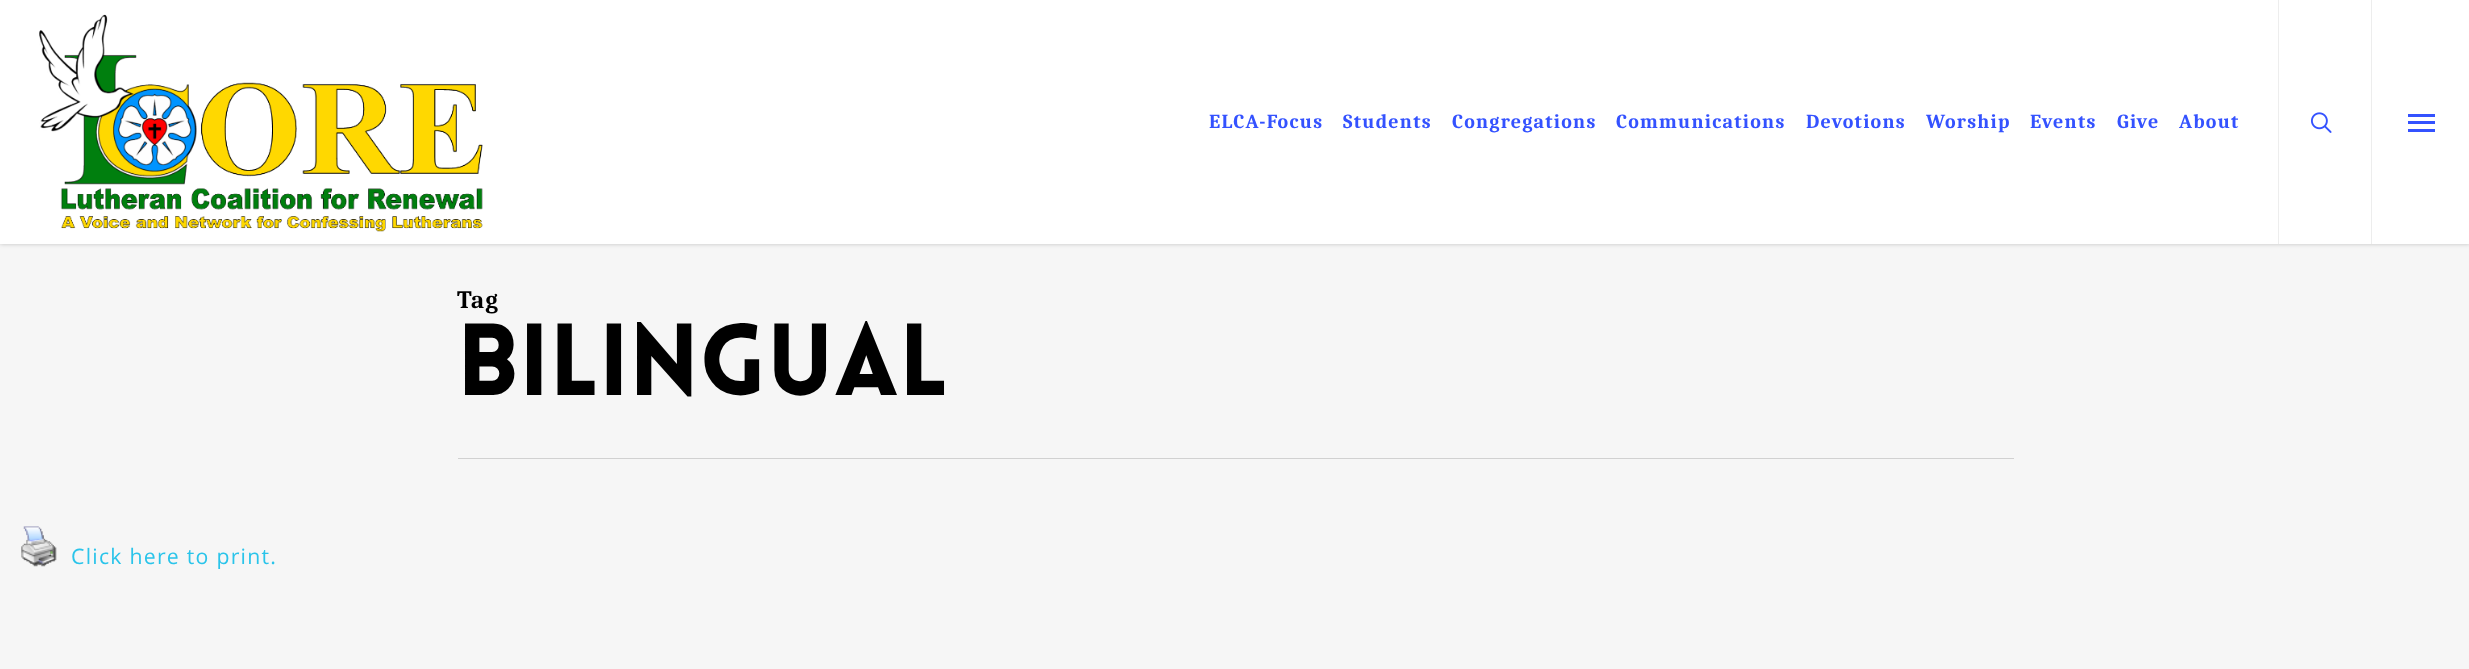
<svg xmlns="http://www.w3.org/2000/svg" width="2469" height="669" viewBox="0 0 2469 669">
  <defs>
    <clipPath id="clip1"><path d="M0 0H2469V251H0ZM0 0H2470V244H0Z" clip-rule="evenodd"/></clipPath>
    <filter id="blur1" x="-50%" y="-200%" width="200%" height="500%"><feGaussianBlur stdDeviation="2"/></filter>
  </defs>
  <rect width="100%" height="100%" fill="#ffffff"/>
  <rect x="0" y="244" width="2469" height="425" fill="#f6f6f6"/>
  <g clip-path="url(#clip1)">
    <rect x="0" y="0" width="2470" height="244" fill="#000000" fill-opacity="0.22" filter="url(#blur1)"/>
  </g>
  <rect x="1" y="243" width="2468" height="1" fill="#ffffff" fill-opacity="0.42"/>
  <image x="39" y="14" width="444" height="218" href="img1.png"/>
  <text x="1209" y="128" font-family="Caladea" font-size="20" font-weight="bold" letter-spacing="1.25" fill="#3452ff">ELCA-Focus</text>
  <text x="1343" y="128" font-family="Caladea" font-size="20" font-weight="bold" letter-spacing="1.25" fill="#3452ff">Students</text>
  <text x="1452" y="128" font-family="Caladea" font-size="20" font-weight="bold" letter-spacing="1.25" fill="#3452ff">Congregations</text>
  <text x="1616" y="128" font-family="Caladea" font-size="20" font-weight="bold" letter-spacing="1.25" fill="#3452ff">Communications</text>
  <text x="1806" y="128" font-family="Caladea" font-size="20" font-weight="bold" letter-spacing="1.25" fill="#3452ff">Devotions</text>
  <text x="1926" y="128" font-family="Caladea" font-size="20" font-weight="bold" letter-spacing="1.25" fill="#3452ff">Worship</text>
  <text x="2030" y="128" font-family="Caladea" font-size="20" font-weight="bold" letter-spacing="1.25" fill="#3452ff">Events</text>
  <text x="2117" y="128" font-family="Caladea" font-size="20" font-weight="bold" letter-spacing="1.25" fill="#3452ff">Give</text>
  <text x="2179" y="128" font-family="Caladea" font-size="20" font-weight="bold" letter-spacing="1.25" fill="#3452ff">About</text>
  <rect x="2278" y="0" width="1" height="244" fill="#000000" fill-opacity="0.07"/>
  <image x="2310" y="112" width="22" height="21" href="img2.png"/>
  <rect x="2371" y="0" width="1" height="244" fill="#000000" fill-opacity="0.07"/>
  <rect x="2408" y="114" width="27" height="3" fill="#3452ff"/>
  <rect x="2408" y="129" width="27" height="3" fill="#3452ff"/>
  <rect x="2408" y="121" width="27" height="3" fill="#3452ff"/>
  <rect x="458" y="458" width="1556" height="1" fill="#d1d1d1"/>
  <text x="457" y="308" font-family="Caladea" font-size="25" font-weight="bold" letter-spacing="1.25" fill="#000000">Tag</text>
  <text x="457" y="395" font-family="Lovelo" font-size="100" font-weight="900" fill="#000000">bilingual</text>
  <image x="21" y="526" width="36" height="41" href="img3.png"/>
  <text x="71" y="564" font-family="Open Sans" font-size="21.25" letter-spacing="1.25" fill="#2ac4ea">Click here to print.</text>
</svg>
